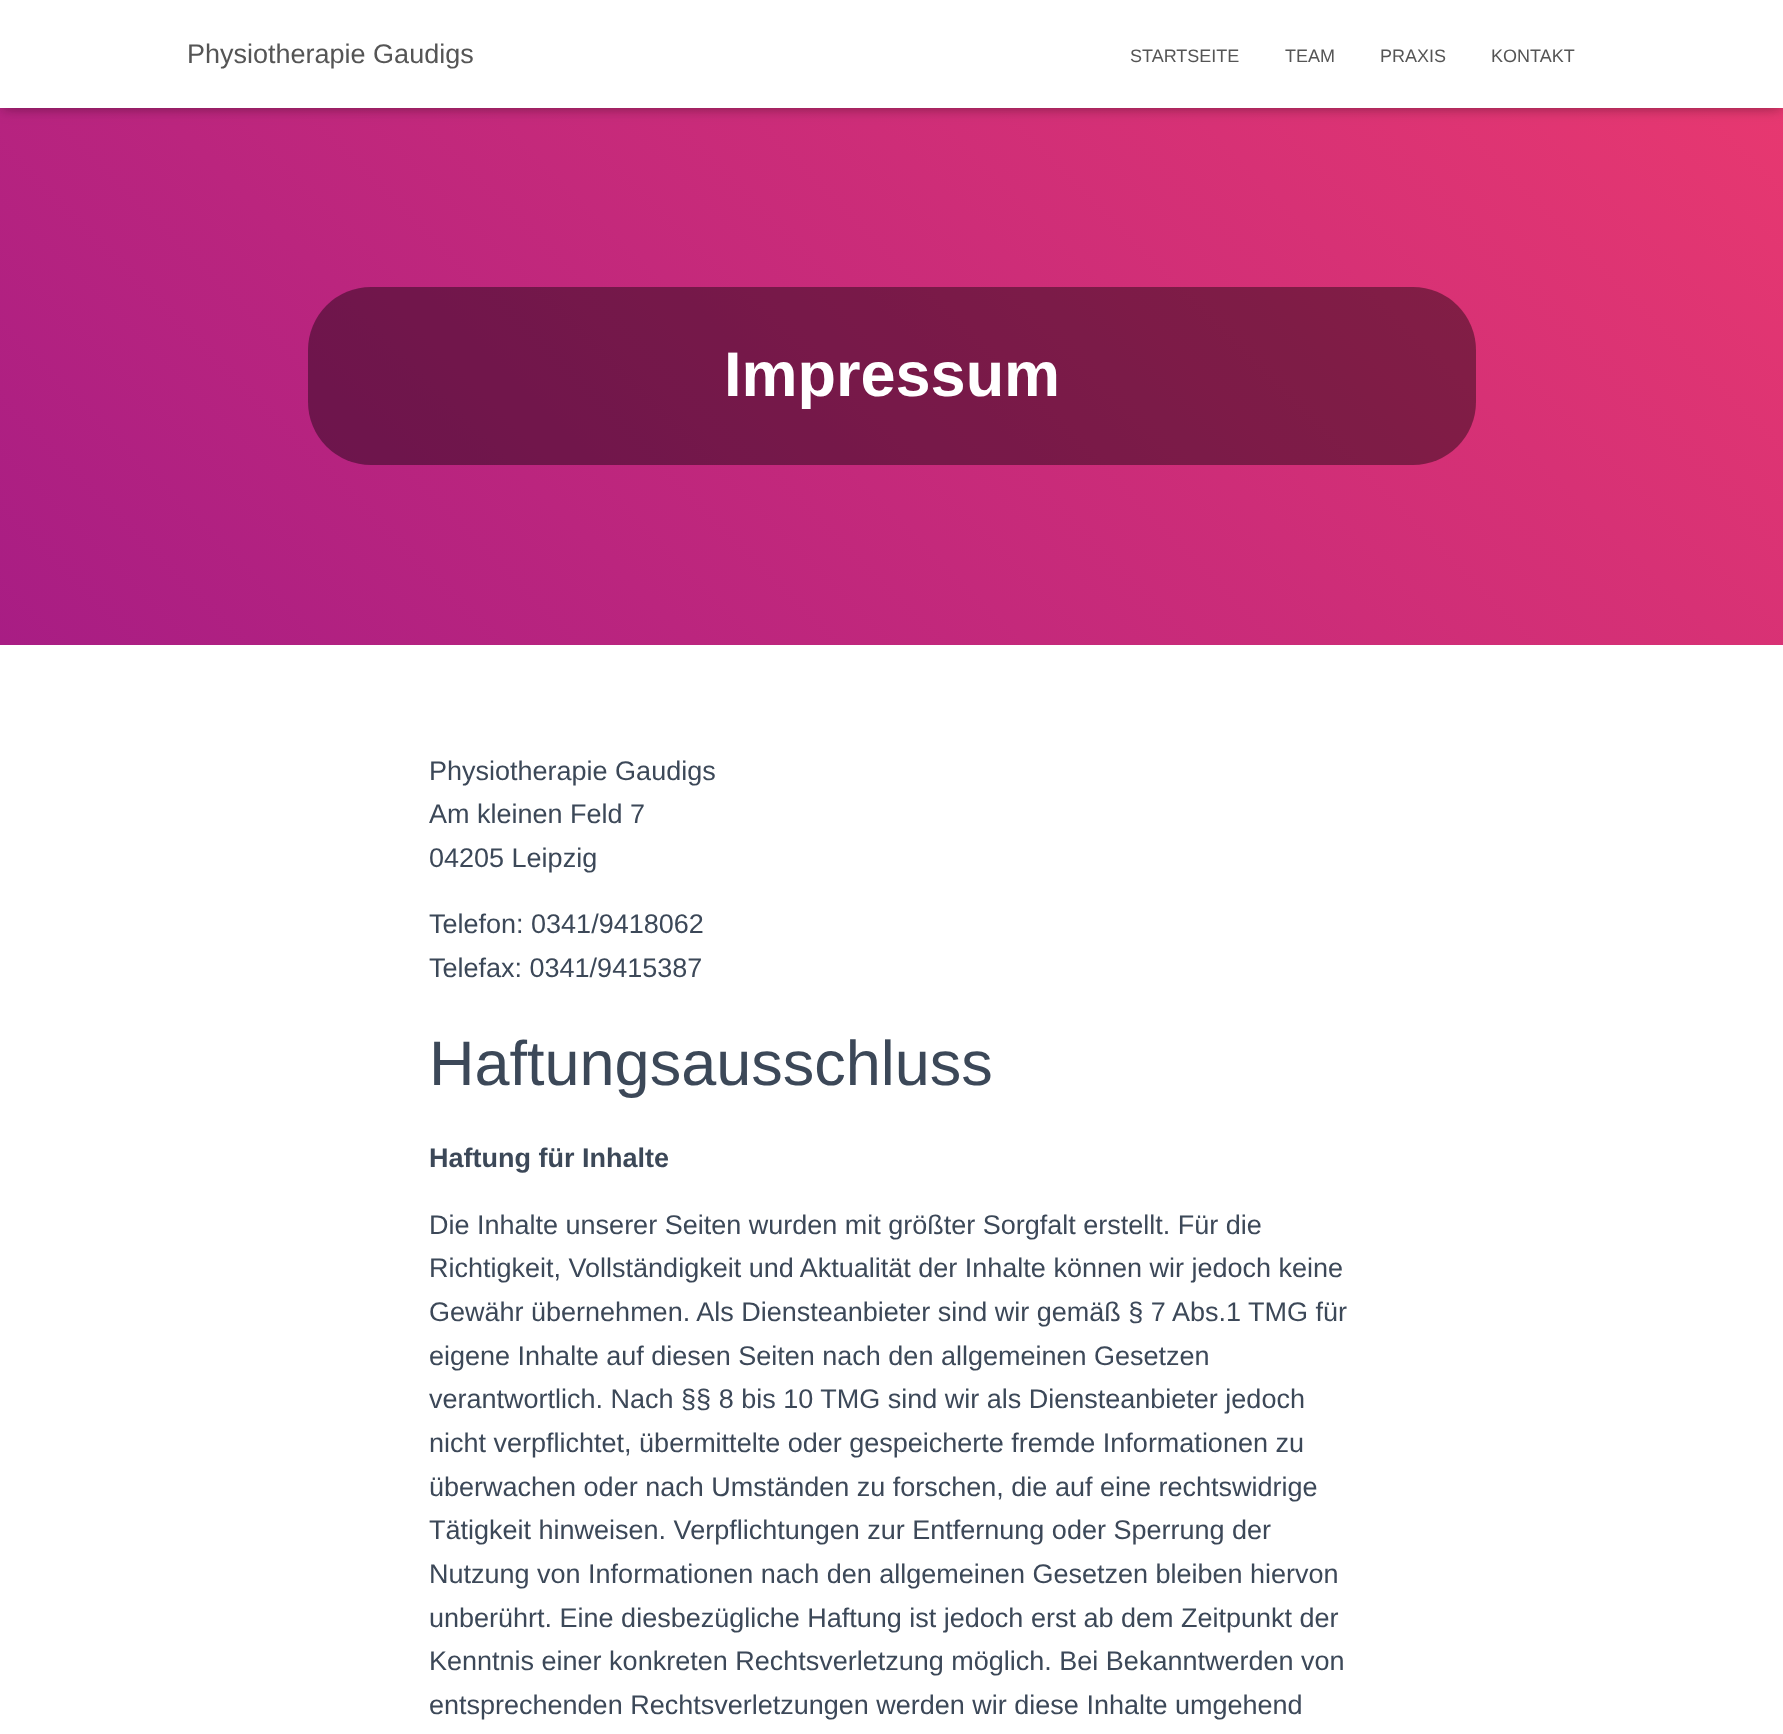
<svg xmlns="http://www.w3.org/2000/svg" width="1783" height="1734" viewBox="0 0 1783 1734">
  <defs>
    <linearGradient id="g1" gradientUnits="userSpaceOnUse" x1="285" y1="930" x2="1499" y2="-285"><stop offset="0" stop-color="#a81d84"/><stop offset="1" stop-color="#ea396f"/></linearGradient>
    <filter id="blur1" x="-50%" y="-200%" width="200%" height="500%"><feGaussianBlur stdDeviation="4"/></filter>
    <filter id="blur2" x="-50%" y="-200%" width="200%" height="500%"><feGaussianBlur stdDeviation="7.5"/></filter>
  </defs>
  <rect width="100%" height="100%" fill="#ffffff"/>
  <rect x="0" y="108" width="1783" height="537" fill="url(#g1)"/>
  <rect x="3" y="9" width="1778" height="102" fill="#000000" fill-opacity="0.1" filter="url(#blur1)"/>
  <rect x="0" y="2" width="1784" height="108" fill="#000000" fill-opacity="0.12" filter="url(#blur2)"/>
  <rect x="9" y="11" width="1766" height="90" fill="#000000" fill-opacity="0.42" filter="url(#blur2)"/>
  <rect x="0" y="0" width="1783" height="108" fill="#ffffff"/>
  <text x="187" y="63" font-family="Liberation Sans" font-size="27" fill="#555555">Physiotherapie Gaudigs</text>
  <text x="1130" y="62" font-family="Liberation Sans" font-size="18" fill="#555555">STARTSEITE</text>
  <text x="1285" y="62" font-family="Liberation Sans" font-size="18" fill="#555555">TEAM</text>
  <text x="1380" y="62" font-family="Liberation Sans" font-size="18" fill="#555555">PRAXIS</text>
  <text x="1491" y="62" font-family="Liberation Sans" font-size="18" fill="#555555">KONTAKT</text>
  <rect x="308" y="287" width="1168" height="178" rx="63" fill="#000000" fill-opacity="0.4"/>
  <text x="724" y="396" font-family="Liberation Sans" font-size="63" font-weight="bold" fill="#ffffff">Impressum</text>
  <text x="429" y="780" font-family="Liberation Sans" font-size="27" fill="#3c4858">Physiotherapie Gaudigs</text>
  <text x="429" y="823" font-family="Liberation Sans" font-size="27" fill="#3c4858">Am kleinen Feld 7</text>
  <text x="429" y="867" font-family="Liberation Sans" font-size="27" fill="#3c4858">04205 Leipzig</text>
  <text x="429" y="933" font-family="Liberation Sans" font-size="27" fill="#3c4858">Telefon: 0341/9418062</text>
  <text x="429" y="977" font-family="Liberation Sans" font-size="27" fill="#3c4858">Telefax: 0341/9415387</text>
  <text x="429" y="1085" font-family="Liberation Sans" font-size="63" fill="#3c4858">Haftungsausschluss</text>
  <text x="429" y="1167" font-family="Liberation Sans" font-size="27" font-weight="bold" fill="#3c4858">Haftung für Inhalte</text>
  <text x="429" y="1234" font-family="Liberation Sans" font-size="27" fill="#3c4858">Die Inhalte unserer Seiten wurden mit größter Sorgfalt erstellt. Für die</text>
  <text x="429" y="1277" font-family="Liberation Sans" font-size="27" fill="#3c4858">Richtigkeit, Vollständigkeit und Aktualität der Inhalte können wir jedoch keine</text>
  <text x="429" y="1321" font-family="Liberation Sans" font-size="27" fill="#3c4858">Gewähr übernehmen. Als Diensteanbieter sind wir gemäß § 7 Abs.1 TMG für</text>
  <text x="429" y="1365" font-family="Liberation Sans" font-size="27" fill="#3c4858">eigene Inhalte auf diesen Seiten nach den allgemeinen Gesetzen</text>
  <text x="429" y="1408" font-family="Liberation Sans" font-size="27" fill="#3c4858">verantwortlich. Nach §§ 8 bis 10 TMG sind wir als Diensteanbieter jedoch</text>
  <text x="429" y="1452" font-family="Liberation Sans" font-size="27" fill="#3c4858">nicht verpflichtet, übermittelte oder gespeicherte fremde Informationen zu</text>
  <text x="429" y="1496" font-family="Liberation Sans" font-size="27" fill="#3c4858">überwachen oder nach Umständen zu forschen, die auf eine rechtswidrige</text>
  <text x="429" y="1539" font-family="Liberation Sans" font-size="27" fill="#3c4858">Tätigkeit hinweisen. Verpflichtungen zur Entfernung oder Sperrung der</text>
  <text x="429" y="1583" font-family="Liberation Sans" font-size="27" fill="#3c4858">Nutzung von Informationen nach den allgemeinen Gesetzen bleiben hiervon</text>
  <text x="429" y="1627" font-family="Liberation Sans" font-size="27" fill="#3c4858">unberührt. Eine diesbezügliche Haftung ist jedoch erst ab dem Zeitpunkt der</text>
  <text x="429" y="1670" font-family="Liberation Sans" font-size="27" fill="#3c4858">Kenntnis einer konkreten Rechtsverletzung möglich. Bei Bekanntwerden von</text>
  <text x="429" y="1714" font-family="Liberation Sans" font-size="27" fill="#3c4858">entsprechenden Rechtsverletzungen werden wir diese Inhalte umgehend</text>
</svg>
